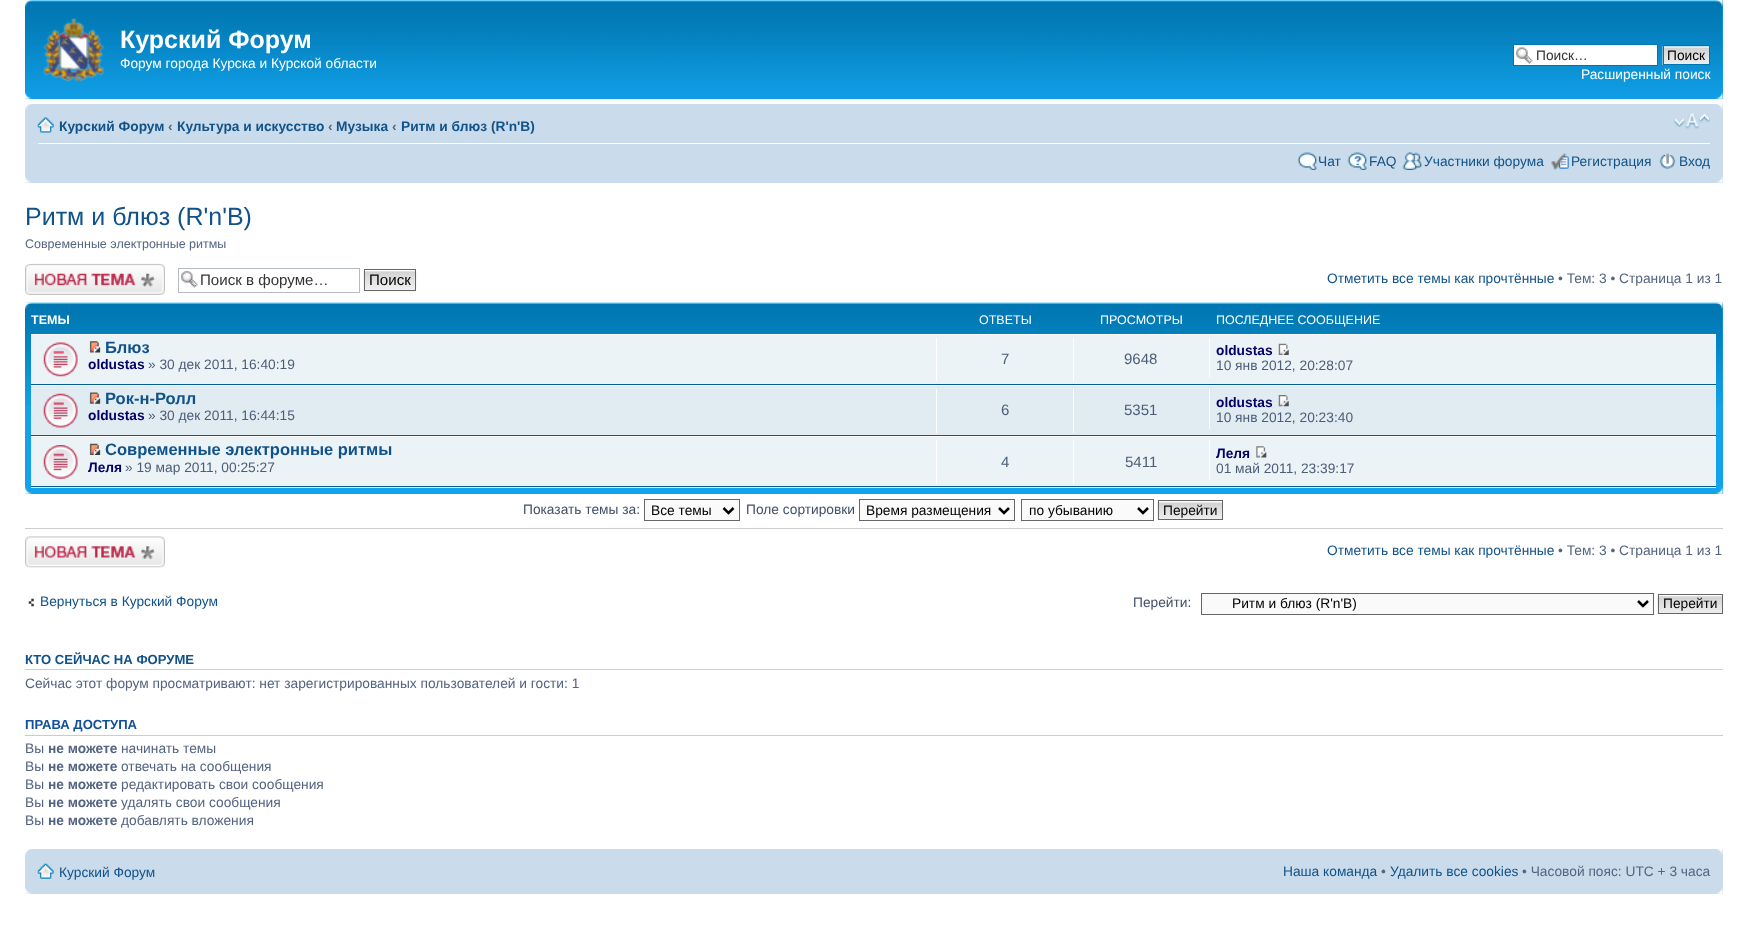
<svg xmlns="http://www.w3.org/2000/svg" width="1747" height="927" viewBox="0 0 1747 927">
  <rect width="100%" height="100%" fill="#ffffff"/>
  <rect x="25" y="0" width="1698" height="99" fill="#12a3eb"/>
  <image x="25" y="0" width="1698" height="99" href="img1.png"/>
  <image x="25" y="0" width="7" height="7" href="img2.png"/>
  <image x="1716" y="0" width="7" height="7" href="img3.png"/>
  <image x="43" y="18" width="61" height="64" href="img4.png"/>
  <text x="120" y="48" font-family="Liberation Sans" font-size="25" font-weight="bold" fill="#ffffff">Курский Форум</text>
  <text x="120" y="68" font-family="Liberation Sans" font-size="13.75" fill="#ffffff">Форум города Курска и Курской области</text>
  <rect x="1514" y="45" width="143" height="20" fill="#ffffff"/>
  <image x="1516" y="47" width="17" height="17" href="img5.png"/>
  <rect x="1513.5" y="44.5" width="144" height="21" fill="none" stroke="#0075b0"/>
  <text x="1536" y="60" font-family="Liberation Sans" font-size="13.75" fill="#333333">Поиск…</text>
  <image x="1662" y="46" width="47" height="19" href="img6.png"/>
  <rect x="1663.5" y="45.5" width="46" height="19" fill="none" stroke="#0075b0"/>
  <text x="1667" y="60" font-family="Liberation Sans" font-size="13.75" fill="#000000">Поиск</text>
  <text x="1581" y="79" font-family="Liberation Sans" font-size="13.75" fill="#ffffff">Расширенный поиск</text>
  <image x="25" y="92" width="7" height="7" href="img7.png"/>
  <image x="1716" y="92" width="7" height="7" href="img8.png"/>
  <rect x="25" y="104" width="1698" height="79" fill="#cadceb"/>
  <image x="25" y="104" width="7" height="6" href="img9.png"/>
  <image x="1716" y="104" width="7" height="6" href="img10.png"/>
  <rect x="38" y="143" width="1672" height="1" fill="#ffffff"/>
  <image x="37" y="117" width="17" height="16" href="img11.png"/>
  <text x="59" y="131" font-family="Liberation Sans" font-size="13.75" font-weight="bold" fill="#105289">Курский Форум</text>
  <text x="168" y="131" font-family="Liberation Sans" font-size="13.75" font-weight="bold" fill="#536482">‹</text>
  <text x="177" y="131" font-family="Liberation Sans" font-size="13.75" font-weight="bold" fill="#105289">Культура и искусство</text>
  <text x="328" y="131" font-family="Liberation Sans" font-size="13.75" font-weight="bold" fill="#536482">‹</text>
  <text x="336" y="131" font-family="Liberation Sans" font-size="13.75" font-weight="bold" fill="#105289">Музыка</text>
  <text x="392" y="131" font-family="Liberation Sans" font-size="13.75" font-weight="bold" fill="#536482">‹</text>
  <text x="401" y="131" font-family="Liberation Sans" font-size="13.75" font-weight="bold" fill="#105289">Ритм и блюз (R'n'B)</text>
  <image x="1673" y="113" width="37" height="16" href="img12.png"/>
  <image x="1297" y="152" width="21" height="18" href="img13.png"/>
  <text x="1318" y="166" font-family="Liberation Sans" font-size="13.75" fill="#105289">Чат</text>
  <image x="1347" y="152" width="21" height="18" href="img14.png"/>
  <text x="1369" y="166" font-family="Liberation Sans" font-size="13.75" fill="#105289">FAQ</text>
  <image x="1402" y="152" width="21" height="18" href="img15.png"/>
  <text x="1424" y="166" font-family="Liberation Sans" font-size="13.75" fill="#105289">Участники форума</text>
  <image x="1551" y="153" width="18" height="17" href="img16.png"/>
  <text x="1571" y="166" font-family="Liberation Sans" font-size="13.75" fill="#105289">Регистрация</text>
  <image x="1659" y="153" width="17" height="16" href="img17.png"/>
  <text x="1679" y="166" font-family="Liberation Sans" font-size="13.75" fill="#105289">Вход</text>
  <image x="25" y="176" width="6" height="7" href="img18.png"/>
  <image x="1716" y="176" width="7" height="7" href="img19.png"/>
  <text x="25" y="225" font-family="Liberation Sans" font-size="25" fill="#105289">Ритм и блюз (R'n'B)</text>
  <text x="25" y="248" font-family="Liberation Sans" font-size="12.5" fill="#536482">Cовременные электронные ритмы</text>
  <image x="25" y="263" width="140" height="32" href="img20.png"/>
  <image x="181" y="271" width="17" height="17" href="img21.png"/>
  <rect x="178.5" y="268.5" width="181" height="24" fill="none" stroke="#b4bac0"/>
  <text x="200" y="285" font-family="Liberation Sans" font-size="15.1" fill="#333333">Поиск в форуме…</text>
  <image x="363" y="270" width="54" height="22" href="img22.png"/>
  <rect x="364.5" y="269.5" width="51" height="21" fill="none" stroke="#666666"/>
  <text x="369" y="285" font-family="Liberation Sans" font-size="15.1" fill="#000000">Поиск</text>
  <text x="1327" y="283" font-family="Liberation Sans" font-size="13.75" fill="#105289">Отметить все темы как прочтённые</text>
  <text x="1558" y="283" font-family="Liberation Sans" font-size="13.75" fill="#536482">• Тем: 3 • Страница 1 из 1</text>
  <rect x="25" y="303" width="1698" height="191" fill="#12a3eb"/>
  <image x="25" y="302" width="1698" height="103" href="img23.png"/>
  <image x="25" y="302" width="7" height="7" href="img24.png"/>
  <image x="1716" y="302" width="7" height="7" href="img25.png"/>
  <text x="31" y="324" font-family="Liberation Sans" font-size="12.5" font-weight="bold" fill="#ffffff">ТЕМЫ</text>
  <text x="979" y="324" font-family="Liberation Sans" font-size="12.5" fill="#ffffff">ОТВЕТЫ</text>
  <text x="1100" y="324" font-family="Liberation Sans" font-size="12.5" fill="#ffffff">ПРОСМОТРЫ</text>
  <text x="1216" y="324" font-family="Liberation Sans" font-size="12.5" fill="#ffffff">ПОСЛЕДНЕЕ СООБЩЕНИЕ</text>
  <rect x="31" y="335" width="1685" height="49" fill="#ecf3f7"/>
  <rect x="31" y="334" width="1685" height="1" fill="#ffffff"/>
  <rect x="31" y="384" width="1685" height="1" fill="#00608f"/>
  <image x="43" y="342" width="35" height="35" href="img26.png"/>
  <image x="89" y="341" width="12" height="12" href="img27.png"/>
  <text x="105" y="353" font-family="Liberation Sans" font-size="16.5" font-weight="bold" fill="#105289">Блюз</text>
  <text x="88" y="369" font-family="Liberation Sans" font-size="13.75" font-weight="bold" fill="#000066">oldustas</text>
  <text x="148" y="369" font-family="Liberation Sans" font-size="13.75" fill="#4c5d77">» 30 дек 2011, 16:40:19</text>
  <rect x="936" y="338" width="1" height="43" fill="#ffffff"/>
  <text x="1001" y="364" font-family="Liberation Sans" font-size="15" fill="#4c5d77">7</text>
  <rect x="1073" y="338" width="1" height="43" fill="#ffffff"/>
  <text x="1124" y="364" font-family="Liberation Sans" font-size="15" fill="#4c5d77">9648</text>
  <rect x="1209" y="338" width="1" height="40" fill="#ffffff"/>
  <text x="1216" y="355" font-family="Liberation Sans" font-size="13.75" font-weight="bold" fill="#000066">oldustas</text>
  <image x="1278" y="343" width="11" height="12" href="img28.png"/>
  <text x="1216" y="370" font-family="Liberation Sans" font-size="13.75" fill="#4c5d77">10 янв 2012, 20:28:07</text>
  <rect x="31" y="386" width="1685" height="49" fill="#e1ebf2"/>
  <rect x="31" y="385" width="1685" height="1" fill="#ffffff"/>
  <rect x="31" y="435" width="1685" height="1" fill="#00608f"/>
  <image x="43" y="393" width="35" height="35" href="img29.png"/>
  <image x="89" y="392" width="12" height="12" href="img30.png"/>
  <text x="105" y="404" font-family="Liberation Sans" font-size="16.5" font-weight="bold" fill="#105289">Рок-н-Ролл</text>
  <text x="88" y="420" font-family="Liberation Sans" font-size="13.75" font-weight="bold" fill="#000066">oldustas</text>
  <text x="148" y="420" font-family="Liberation Sans" font-size="13.75" fill="#4c5d77">» 30 дек 2011, 16:44:15</text>
  <rect x="936" y="389" width="1" height="44" fill="#ffffff"/>
  <text x="1001" y="415" font-family="Liberation Sans" font-size="15" fill="#4c5d77">6</text>
  <rect x="1073" y="389" width="1" height="44" fill="#ffffff"/>
  <text x="1124" y="415" font-family="Liberation Sans" font-size="15" fill="#4c5d77">5351</text>
  <rect x="1209" y="389" width="1" height="40" fill="#ffffff"/>
  <text x="1216" y="407" font-family="Liberation Sans" font-size="13.75" font-weight="bold" fill="#000066">oldustas</text>
  <image x="1278" y="395" width="11" height="12" href="img31.png"/>
  <text x="1216" y="422" font-family="Liberation Sans" font-size="13.75" fill="#4c5d77">10 янв 2012, 20:23:40</text>
  <rect x="31" y="437" width="1685" height="51" fill="#ecf3f7"/>
  <rect x="31" y="436" width="1685" height="1" fill="#ffffff"/>
  <rect x="31" y="486" width="1685" height="1" fill="#00608f"/>
  <image x="43" y="445" width="35" height="34" href="img32.png"/>
  <image x="89" y="443" width="12" height="12" href="img33.png"/>
  <text x="105" y="455" font-family="Liberation Sans" font-size="16.5" font-weight="bold" fill="#105289">Cовременные электронные ритмы</text>
  <text x="88" y="472" font-family="Liberation Sans" font-size="13.75" font-weight="bold" fill="#000066">Леля</text>
  <text x="125" y="472" font-family="Liberation Sans" font-size="13.75" fill="#4c5d77">» 19 мар 2011, 00:25:27</text>
  <rect x="936" y="440" width="1" height="44" fill="#ffffff"/>
  <text x="1001" y="467" font-family="Liberation Sans" font-size="15" fill="#4c5d77">4</text>
  <rect x="1073" y="440" width="1" height="44" fill="#ffffff"/>
  <text x="1125" y="467" font-family="Liberation Sans" font-size="15" fill="#4c5d77">5411</text>
  <rect x="1209" y="440" width="1" height="40" fill="#ffffff"/>
  <text x="1216" y="458" font-family="Liberation Sans" font-size="13.75" font-weight="bold" fill="#000066">Леля</text>
  <image x="1256" y="446" width="11" height="12" href="img34.png"/>
  <text x="1216" y="473" font-family="Liberation Sans" font-size="13.75" fill="#4c5d77">01 май 2011, 23:39:17</text>
  <image x="25" y="487" width="7" height="7" href="img35.png"/>
  <image x="1716" y="487" width="7" height="7" href="img36.png"/>
  <text x="523" y="514" font-family="Liberation Sans" font-size="13.75" fill="#425067">Показать темы за:</text>
  <rect x="644.5" y="499.5" width="95" height="21" fill="#fafafa" stroke="#666666"/>
  <path d="M723.5 508L728.5 513L733.5 508" fill="none" stroke="#000000" stroke-width="2.5"/>
  <text x="651" y="515" font-family="Liberation Sans" font-size="13.75" fill="#000000">Все темы</text>
  <text x="746" y="514" font-family="Liberation Sans" font-size="13.75" fill="#425067">Поле сортировки</text>
  <rect x="859.5" y="499.5" width="155" height="21" fill="#fafafa" stroke="#666666"/>
  <path d="M999 508L1004 513L1009 508" fill="none" stroke="#000000" stroke-width="2.5"/>
  <text x="866" y="515" font-family="Liberation Sans" font-size="13.75" fill="#000000">Время размещения</text>
  <rect x="1021.5" y="499.5" width="132" height="21" fill="#fafafa" stroke="#666666"/>
  <path d="M1138 508L1143 513L1148 508" fill="none" stroke="#000000" stroke-width="2.5"/>
  <text x="1029" y="515" font-family="Liberation Sans" font-size="13.75" fill="#000000">по убыванию</text>
  <rect x="1159" y="501" width="63" height="1" fill="#fafafa"/>
  <image x="1157" y="502" width="65" height="18" href="img37.png"/>
  <rect x="1158.5" y="500.5" width="64" height="19" fill="none" stroke="#666666"/>
  <text x="1163" y="515" font-family="Liberation Sans" font-size="13.75" fill="#000000">Перейти</text>
  <rect x="25" y="528" width="1698" height="1" fill="#cccccc"/>
  <image x="25" y="536" width="140" height="32" href="img38.png"/>
  <text x="1327" y="555" font-family="Liberation Sans" font-size="13.75" fill="#105289">Отметить все темы как прочтённые</text>
  <text x="1558" y="555" font-family="Liberation Sans" font-size="13.75" fill="#536482">• Тем: 3 • Страница 1 из 1</text>
  <image x="28" y="598" width="6" height="9" href="img39.png"/>
  <text x="40" y="606" font-family="Liberation Sans" font-size="13.75" fill="#105289">Вернуться в Курский Форум</text>
  <text x="1133" y="607" font-family="Liberation Sans" font-size="13.75" fill="#425067">Перейти:</text>
  <rect x="1201.5" y="593.5" width="452" height="21" fill="#fafafa" stroke="#666666"/>
  <path d="M1638 601L1643 606L1648 601" fill="none" stroke="#000000" stroke-width="2.5"/>
  <text x="1232" y="608" font-family="Liberation Sans" font-size="13.75" fill="#000000">Ритм и блюз (R'n'B)</text>
  <image x="1657" y="595" width="65" height="19" href="img40.png"/>
  <rect x="1658.5" y="594.5" width="64" height="19" fill="none" stroke="#666666"/>
  <text x="1663" y="608" font-family="Liberation Sans" font-size="13.75" fill="#000000">Перейти</text>
  <rect x="25" y="669" width="1698" height="1" fill="#cccccc"/>
  <text x="25" y="664" font-family="Liberation Sans" font-size="13.1" font-weight="bold" fill="#105289">КТО СЕЙЧАС НА ФОРУМЕ</text>
  <text x="25" y="688" font-family="Liberation Sans" font-size="13.75" fill="#536482">Сейчас этот форум просматривают: нет зарегистрированных пользователей и гости: 1</text>
  <rect x="25" y="735" width="1698" height="1" fill="#cccccc"/>
  <text x="25" y="729" font-family="Liberation Sans" font-size="13.1" font-weight="bold" fill="#115098">ПРАВА ДОСТУПА</text>
  <text x="25" y="753" font-family="Liberation Sans" font-size="13.75" fill="#536482">Вы</text>
  <text x="48" y="753" font-family="Liberation Sans" font-size="13.75" font-weight="bold" fill="#536482">не можете</text>
  <text x="121" y="753" font-family="Liberation Sans" font-size="13.75" fill="#536482">начинать темы</text>
  <text x="25" y="771" font-family="Liberation Sans" font-size="13.75" fill="#536482">Вы</text>
  <text x="48" y="771" font-family="Liberation Sans" font-size="13.75" font-weight="bold" fill="#536482">не можете</text>
  <text x="121" y="771" font-family="Liberation Sans" font-size="13.75" fill="#536482">отвечать на сообщения</text>
  <text x="25" y="789" font-family="Liberation Sans" font-size="13.75" fill="#536482">Вы</text>
  <text x="48" y="789" font-family="Liberation Sans" font-size="13.75" font-weight="bold" fill="#536482">не можете</text>
  <text x="121" y="789" font-family="Liberation Sans" font-size="13.75" fill="#536482">редактировать свои сообщения</text>
  <text x="25" y="807" font-family="Liberation Sans" font-size="13.75" fill="#536482">Вы</text>
  <text x="48" y="807" font-family="Liberation Sans" font-size="13.75" font-weight="bold" fill="#536482">не можете</text>
  <text x="121" y="807" font-family="Liberation Sans" font-size="13.75" fill="#536482">удалять свои сообщения</text>
  <text x="25" y="825" font-family="Liberation Sans" font-size="13.75" fill="#536482">Вы</text>
  <text x="48" y="825" font-family="Liberation Sans" font-size="13.75" font-weight="bold" fill="#536482">не можете</text>
  <text x="121" y="825" font-family="Liberation Sans" font-size="13.75" fill="#536482">добавлять вложения</text>
  <rect x="25" y="849" width="1698" height="45" fill="#cadceb"/>
  <image x="25" y="849" width="7" height="6" href="img9.png"/>
  <image x="1716" y="849" width="7" height="6" href="img10.png"/>
  <image x="37" y="863" width="17" height="16" href="img41.png"/>
  <text x="59" y="877" font-family="Liberation Sans" font-size="13.75" fill="#105289">Курский Форум</text>
  <text x="1283" y="876" font-family="Liberation Sans" font-size="13.75" fill="#105289">Наша команда</text>
  <text x="1381" y="876" font-family="Liberation Sans" font-size="13.75" fill="#536482">•</text>
  <text x="1390" y="876" font-family="Liberation Sans" font-size="13.75" fill="#105289">Удалить все cookies</text>
  <text x="1522" y="876" font-family="Liberation Sans" font-size="13.75" fill="#536482">• Часовой пояс: UTC + 3 часа</text>
  <image x="25" y="887" width="6" height="7" href="img42.png"/>
  <image x="1716" y="888" width="7" height="6" href="img43.png"/>
</svg>
